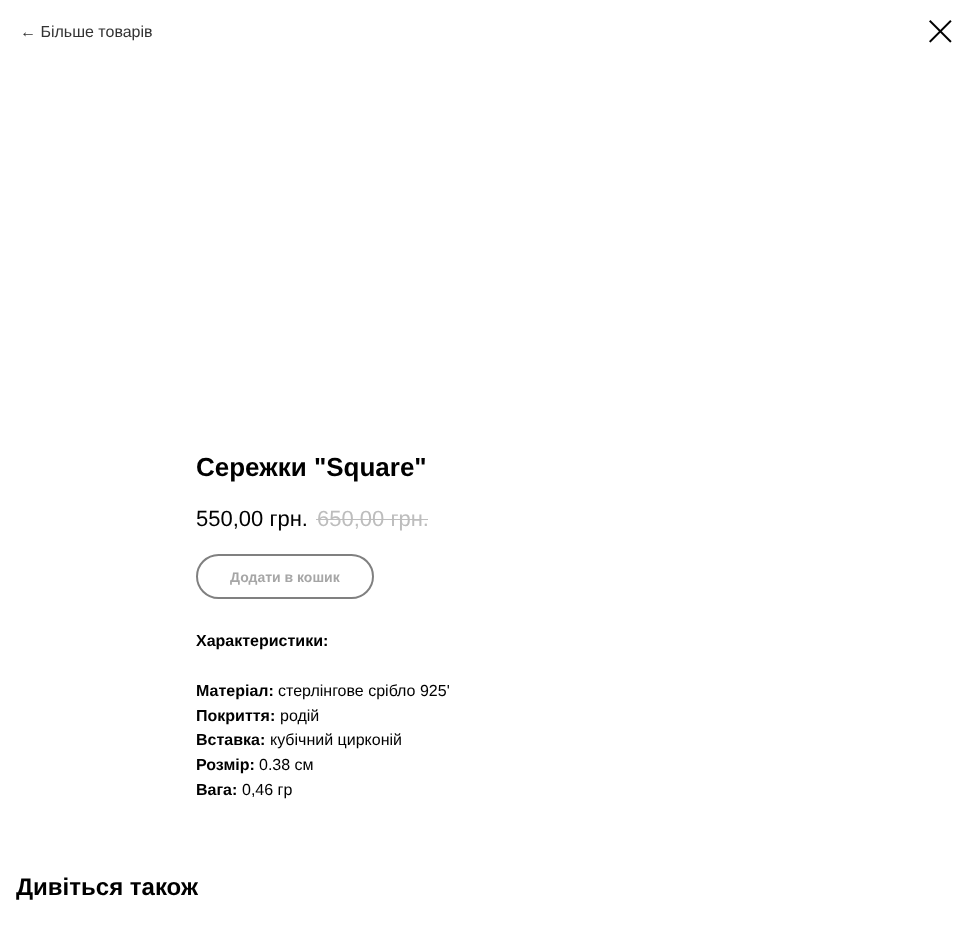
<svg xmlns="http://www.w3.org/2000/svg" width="972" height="949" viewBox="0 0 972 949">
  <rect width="100%" height="100%" fill="#ffffff"/>
  <text x="20" y="37" font-family="Liberation Sans" font-size="16" fill="#333333">← Більше товарів</text>
  <image x="929" y="20" width="23" height="23" href="img1.png"/>
  <text x="196" y="476" font-family="Liberation Sans" font-size="26" font-weight="bold" fill="#000000">Сережки "Square"</text>
  <text x="196" y="526" font-family="Liberation Sans" font-size="22" fill="#000000">550,00 грн.</text>
  <text x="317" y="526" font-family="Liberation Sans" font-size="22" fill="#bdbdbd">650,00 грн.</text>
  <rect x="316" y="519" width="112" height="1" fill="#bdbdbd"/>
  <rect x="197" y="555" width="176" height="43" rx="21.5" fill="none" stroke="#808080" stroke-width="2"/>
  <text x="230" y="582" font-family="Liberation Sans" font-size="14" font-weight="bold" fill="#a6a6a6">Додати в кошик</text>
  <text x="196" y="646" font-family="Liberation Sans" font-size="16" font-weight="bold" fill="#000000">Характеристики:</text>
  <text x="196" y="696" font-family="Liberation Sans" font-size="16" font-weight="bold" fill="#000000">Матеріал:</text>
  <text x="278" y="696" font-family="Liberation Sans" font-size="16" fill="#000000">стерлінгове срібло 925'</text>
  <text x="196" y="721" font-family="Liberation Sans" font-size="16" font-weight="bold" fill="#000000">Покриття:</text>
  <text x="280" y="721" font-family="Liberation Sans" font-size="16" fill="#000000">родій</text>
  <text x="196" y="745" font-family="Liberation Sans" font-size="16" font-weight="bold" fill="#000000">Вставка:</text>
  <text x="270" y="745" font-family="Liberation Sans" font-size="16" fill="#000000">кубічний цирконій</text>
  <text x="196" y="770" font-family="Liberation Sans" font-size="16" font-weight="bold" fill="#000000">Розмір:</text>
  <text x="259" y="770" font-family="Liberation Sans" font-size="16" fill="#000000">0.38 см</text>
  <text x="196" y="795" font-family="Liberation Sans" font-size="16" font-weight="bold" fill="#000000">Вага:</text>
  <text x="242" y="795" font-family="Liberation Sans" font-size="16" fill="#000000">0,46 гр</text>
  <text x="16" y="895" font-family="Liberation Sans" font-size="24" font-weight="bold" fill="#000000">Дивіться також</text>
</svg>
